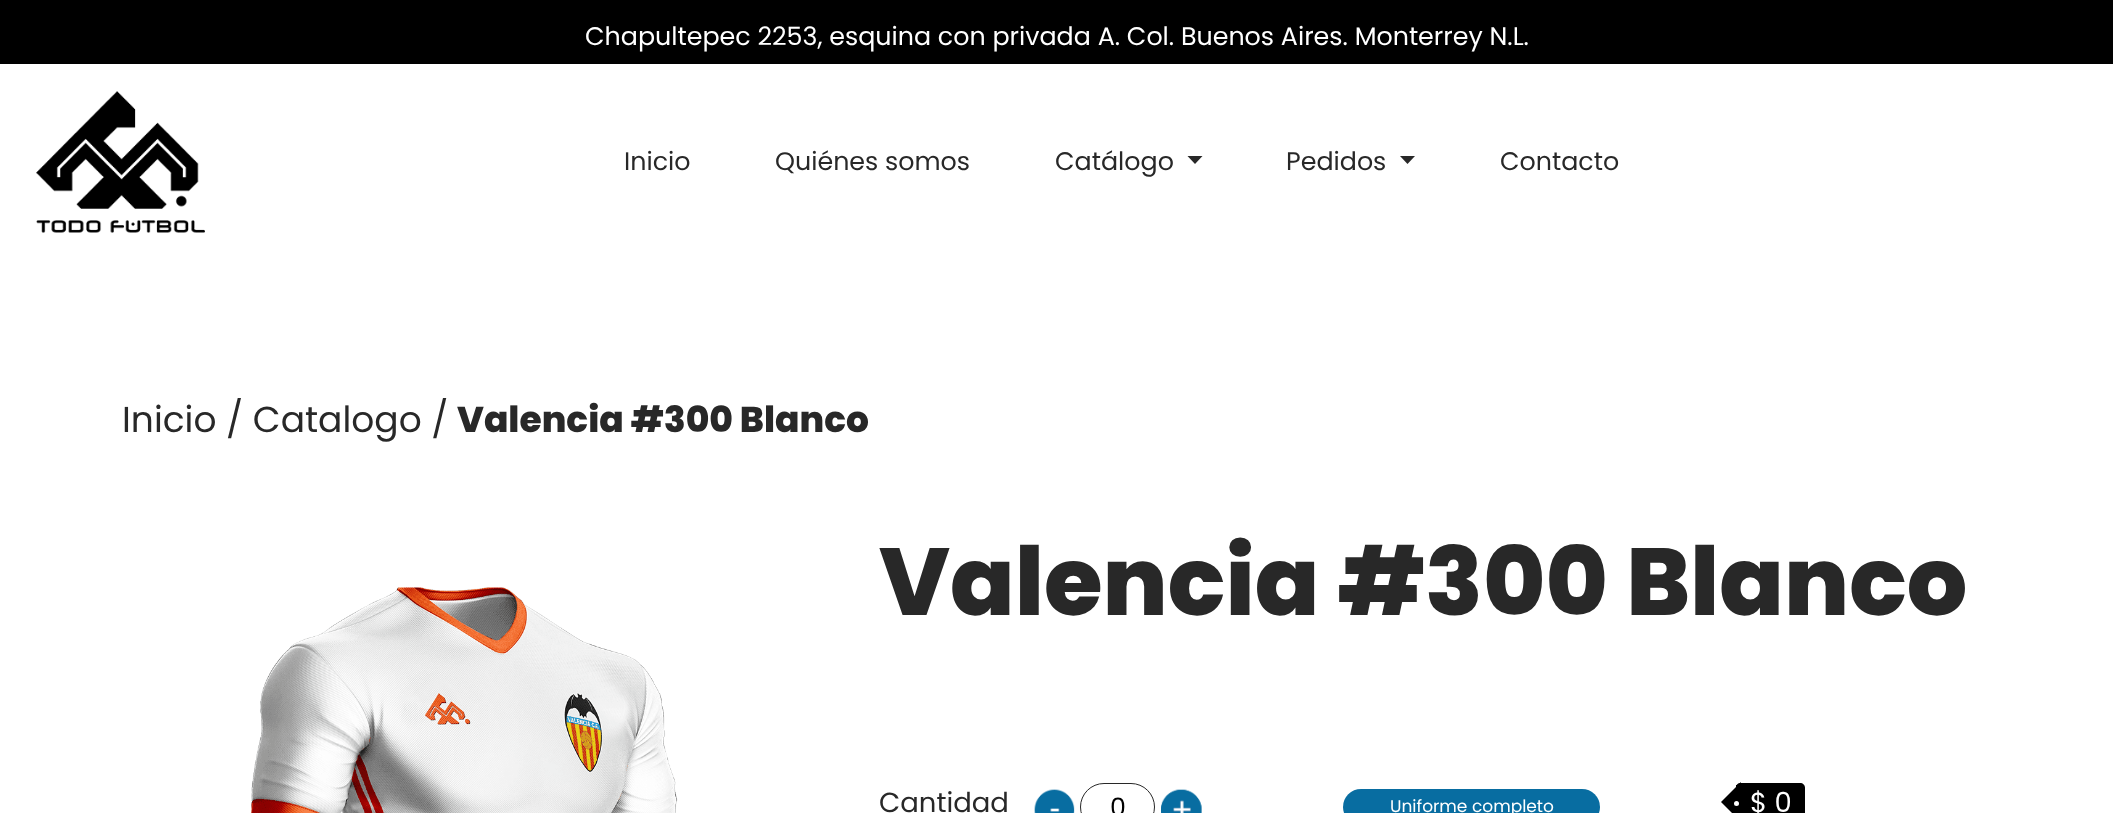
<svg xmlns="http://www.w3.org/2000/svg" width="2113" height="813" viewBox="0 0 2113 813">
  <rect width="100%" height="100%" fill="#ffffff"/>
  <rect x="0" y="0" width="2113" height="64" fill="#000000"/>
  <text x="585" y="45" font-family="Poppins" font-size="25.35" fill="#ffffff">Chapultepec 2253, esquina con privada A. Col. Buenos Aires. Monterrey N.L.</text>
  <image x="36" y="91" width="169" height="142" href="img1.png"/>
  <text x="624" y="170" font-family="Poppins" font-size="25.35" fill="#282828">Inicio</text>
  <text x="775" y="170" font-family="Poppins" font-size="25.35" fill="#282828">Quiénes somos</text>
  <text x="1055" y="170" font-family="Poppins" font-size="25.35" fill="#282828">Catálogo</text>
  <path d="M1187.5 156H1202.5L1195 164Z" fill="#282828"/>
  <text x="1286" y="170" font-family="Poppins" font-size="25.35" fill="#282828">Pedidos</text>
  <path d="M1400 156H1415L1407.5 164Z" fill="#282828"/>
  <text x="1500" y="170" font-family="Poppins" font-size="25.35" fill="#282828">Contacto</text>
  <text x="122" y="432" font-family="Poppins" font-size="36" fill="#282828">Inicio / Catalogo /</text>
  <text x="457" y="432" font-family="Poppins" font-size="36" font-weight="800" fill="#282828">Valencia #300 Blanco</text>
  <image x="251" y="587" width="427" height="226" href="img2.png"/>
  <text x="879" y="615" font-family="Poppins" font-size="95.1" font-weight="800" fill="#282828">Valencia #300 Blanco</text>
  <text x="879" y="812" font-family="Poppins" font-size="27.5" fill="#282828">Cantidad</text>
  <image x="1034" y="789" width="41" height="24" href="img3.png"/>
  <rect x="1080.5" y="783.5" width="74" height="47" rx="23.5" fill="none" stroke="#282828"/>
  <text x="1110" y="816" font-family="Poppins" font-size="25.35" fill="#000000">0</text>
  <image x="1161" y="789" width="41" height="24" href="img4.png"/>
  <rect x="1343" y="789" width="257" height="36" rx="18" fill="#086da1"/>
  <text x="1390" y="812" font-family="Poppins" font-size="17" fill="#ffffff">Uniforme completo</text>
  <path d="M1740 783H1800C1803 783 1805 785 1805 788V813C1805 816 1803 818 1800 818H1740C1738 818 1736 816 1736 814V787C1736 785 1738 783 1740 783Z" fill="#000000"/>
  <rect x="1736" y="785" width="1" height="2" fill="#000000"/>
  <path d="M1741 782V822L1721 802Z" fill="#000000"/>
  <text x="1750" y="812" font-family="Poppins" font-size="27.5" fill="#ffffff">$ 0</text>
  <circle cx="1736.5" cy="803.5" r="2.5" fill="#ffffff"/>
</svg>
